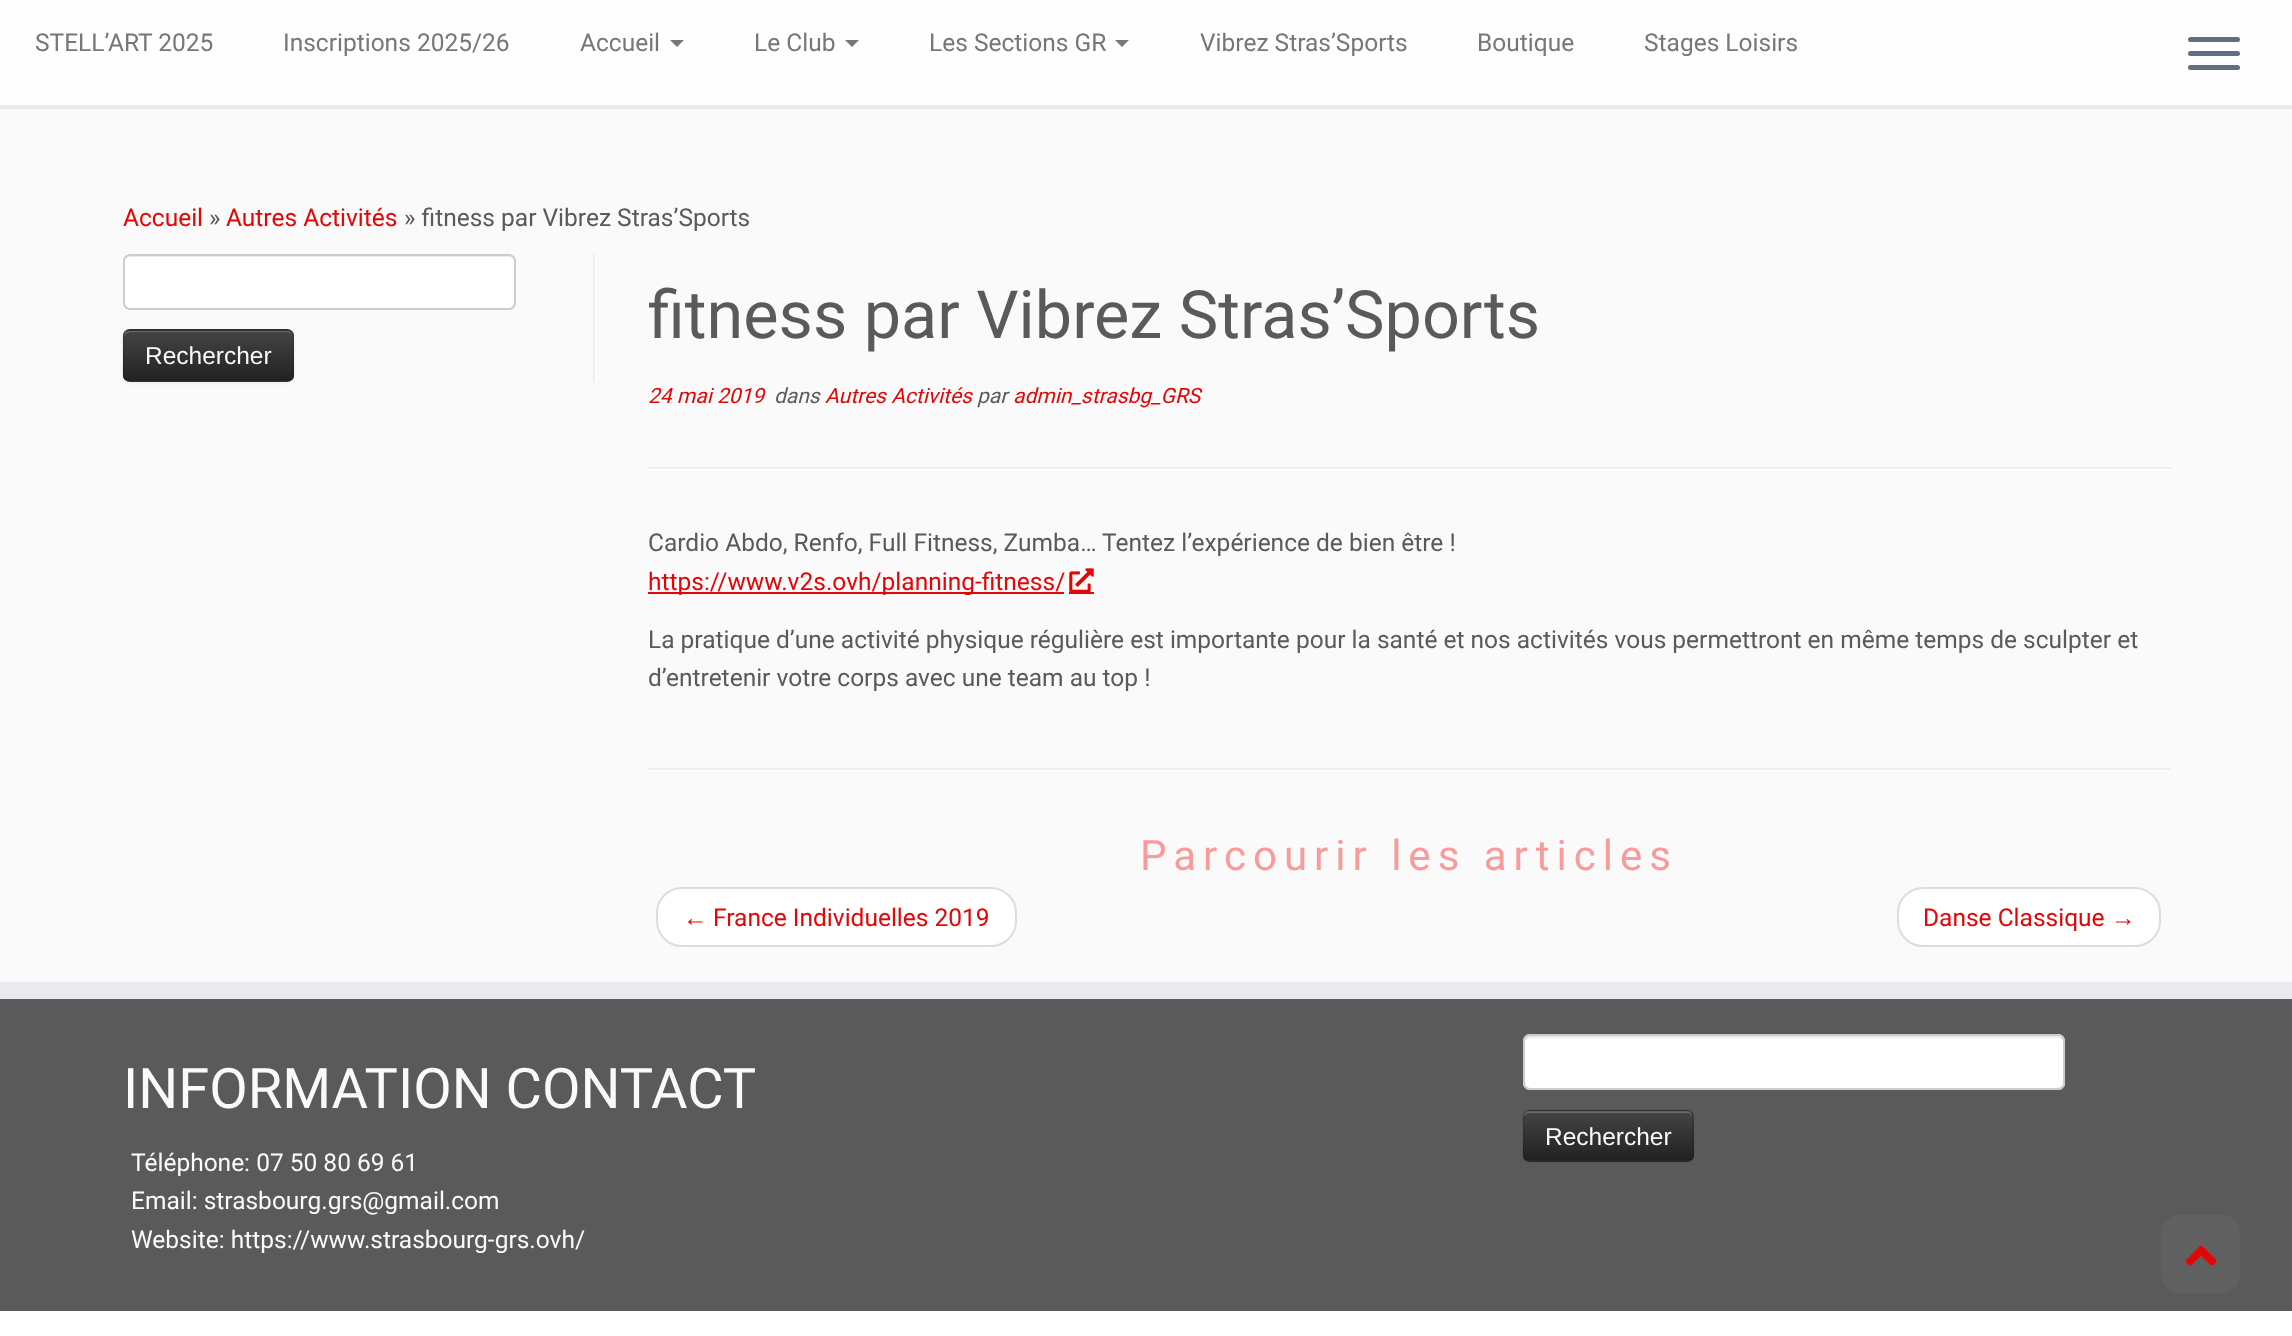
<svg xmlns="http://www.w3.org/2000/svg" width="2292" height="1336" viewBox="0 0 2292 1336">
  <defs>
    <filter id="blur1" x="-50%" y="-200%" width="200%" height="500%"><feGaussianBlur stdDeviation="2"/></filter>
    <clipPath id="clip1"><rect x="123" y="329" width="171" height="53" rx="7"/></clipPath>
    <linearGradient id="g1" gradientUnits="userSpaceOnUse" x1="208" y1="331" x2="208" y2="380"><stop offset="0" stop-color="#444444"/><stop offset="1" stop-color="#222222"/></linearGradient>
    <clipPath id="clip2"><rect x="1523" y="1110" width="171" height="52" rx="7"/></clipPath>
    <linearGradient id="g2" gradientUnits="userSpaceOnUse" x1="1608" y1="1111" x2="1608" y2="1160"><stop offset="0" stop-color="#444444"/><stop offset="1" stop-color="#222222"/></linearGradient>
  </defs>
  <rect width="100%" height="100%" fill="#fafafa"/>
  <rect x="0" y="0" width="2292" height="105" fill="#fefefe"/>
  <rect x="0" y="105" width="2292" height="4" fill="#e9eaee"/>
  <text x="35" y="51" font-family="Roboto" font-size="24.5" fill="#777777">STELL’ART 2025</text>
  <text x="283" y="51" font-family="Roboto" font-size="24.5" fill="#777777">Inscriptions 2025/26</text>
  <text x="580" y="51" font-family="Roboto" font-size="24.5" fill="#777777">Accueil</text>
  <path d="M670 40H684L677 47Z" fill="#777777"/>
  <text x="754" y="51" font-family="Roboto" font-size="24.5" fill="#777777">Le Club</text>
  <path d="M845 40H859L852 47Z" fill="#777777"/>
  <text x="929" y="51" font-family="Roboto" font-size="24.5" fill="#777777">Les Sections GR</text>
  <path d="M1115 40H1129L1122 47Z" fill="#777777"/>
  <text x="1200" y="51" font-family="Roboto" font-size="24.5" fill="#777777">Vibrez Stras’Sports</text>
  <text x="1477" y="51" font-family="Roboto" font-size="24.5" fill="#777777">Boutique</text>
  <text x="1644" y="51" font-family="Roboto" font-size="24.5" fill="#777777">Stages Loisirs</text>
  <rect x="2188" y="37" width="52" height="5" rx="2.5" fill="#5f6f81"/>
  <rect x="2188" y="51" width="52" height="5" rx="2.5" fill="#5f6f81"/>
  <rect x="2188" y="65" width="52" height="5" rx="2.5" fill="#5f6f81"/>
  <text x="123" y="226" font-family="Roboto" font-size="24.5" fill="#e10707">Accueil</text>
  <text x="209" y="226" font-family="Roboto" font-size="24.5" fill="#5a5a5a">»</text>
  <text x="226" y="226" font-family="Roboto" font-size="24.5" fill="#e10707">Autres Activités</text>
  <text x="404" y="226" font-family="Roboto" font-size="24.5" fill="#5a5a5a">» fitness par Vibrez Stras’Sports</text>
  <rect x="593" y="254" width="2" height="128" fill="#eeeeee"/>
  <rect x="123" y="254" width="393" height="56" rx="7" fill="#ffffff"/>
  <path d="M130 257H509C512 257 514 260 514 262V304V307C514 306 515 304 515 303V261C515 258 513 256 510 256H129C126 256 124 258 124 261V262C124 260 127 257 130 257Z" fill="#ececec"/>
  <rect x="124" y="255" width="391" height="54" rx="6" fill="none" stroke="#cccccc" stroke-width="2"/>
  <rect x="123" y="331" width="171" height="52" rx="7" fill="#000000" fill-opacity="0.05" filter="url(#blur1)"/>
  <rect x="123" y="329" width="171" height="53" rx="7" fill="#363636"/>
  <g clip-path="url(#clip1)">
    <rect x="123" y="331" width="171" height="49" fill="url(#g1)"/>
  </g>
  <path d="M130 332H287C290 332 292 335 292 338V336C292 333 290 331 287 331H129C126 331 124 333 124 336V338C124 335 127 332 130 332Z" fill="#ffffff" fill-opacity="0.2"/>
  <path d="M291.5 379C290 380 288.5 380.5 287 380.5H129.5C128 380.5 126.5 380 125 379" fill="none" stroke="#000000" stroke-opacity="0.25" stroke-width="1.8"/>
  <path d="M125 379C121.5 375.5 123.5 365.5 123.5 361.5V342.5C123.5 337.5 122.5 330 129.5 330H287C294 330 293 337.5 293 342.5V361.5C293 365.5 295 375.5 291.5 379" fill="none" stroke="#000000" stroke-opacity="0.1" stroke-width="1.8"/>
  <text x="145" y="364" font-family="Liberation Sans" font-size="24.5" fill="#fafafa">Rechercher</text>
  <rect x="595" y="254" width="2" height="128" fill="#ffffff"/>
  <text x="648" y="338" font-family="Roboto" font-size="66.5" fill="#5a5a5a">fitness par Vibrez Stras’Sports</text>
  <text x="648" y="403" font-family="Roboto" font-size="21" font-style="italic" fill="#e10707">24 mai 2019</text>
  <text x="774" y="403" font-family="Roboto" font-size="21" font-style="italic" fill="#5a5a5a">dans</text>
  <text x="825" y="403" font-family="Roboto" font-size="21" font-style="italic" fill="#e10707">Autres Activités</text>
  <text x="977" y="403" font-family="Roboto" font-size="21" font-style="italic" fill="#5a5a5a">par</text>
  <text x="1013" y="403" font-family="Roboto" font-size="21" font-style="italic" fill="#e10707">admin_strasbg_GRS</text>
  <rect x="648" y="467" width="1522" height="2" fill="#eeeeee"/>
  <rect x="648" y="469" width="1522" height="2" fill="#ffffff"/>
  <text x="648" y="551" font-family="Roboto" font-size="24.5" fill="#5a5a5a">Cardio Abdo, Renfo, Full Fitness, Zumba… Tentez l’expérience de bien être !</text>
  <rect x="648" y="592" width="416" height="2" fill="#e10707"/>
  <text x="648" y="590" font-family="Roboto" font-size="24.5" fill="#e10707">https://www.v2s.ovh/planning-fitness/</text>
  <rect x="1069" y="592" width="25" height="2" fill="#e10707"/>
  <image x="1069" y="568" width="25" height="24" href="img1.png"/>
  <text x="648" y="648" font-family="Roboto" font-size="24.5" fill="#5a5a5a">La pratique d’une activité physique régulière est importante pour la santé et nos activités vous permettront en même temps de sculpter et</text>
  <text x="648" y="686" font-family="Roboto" font-size="24.5" fill="#5a5a5a">d’entretenir votre corps avec une team au top !</text>
  <rect x="648" y="768" width="1522" height="2" fill="#eeeeee"/>
  <rect x="648" y="770" width="1522" height="2" fill="#ffffff"/>
  <text x="1140" y="870" font-family="Roboto" font-size="42" letter-spacing="7" fill="#fa9b9b">Parcourir les articles</text>
  <rect x="657" y="888" width="359" height="58" rx="25" fill="#ffffff" stroke="#dddddd" stroke-width="2"/>
  <text x="683" y="926" font-family="Liberation Serif" font-size="24.5" fill="#e10707">←</text>
  <text x="713" y="926" font-family="Roboto" font-size="24.5" fill="#e10707">France Individuelles 2019</text>
  <rect x="1898" y="888" width="262" height="58" rx="25" fill="#ffffff" stroke="#dddddd" stroke-width="2"/>
  <text x="1923" y="926" font-family="Roboto" font-size="24.5" fill="#e10707">Danse Classique</text>
  <text x="2111" y="926" font-family="Liberation Serif" font-size="24.5" fill="#e10707">→</text>
  <rect x="0" y="999" width="2292" height="312" fill="#5a5a5a"/>
  <rect x="0" y="982" width="2292" height="17" fill="#e9eaee"/>
  <text x="123" y="1108" font-family="Roboto" font-size="56" fill="#fafafa">INFORMATION CONTACT</text>
  <text x="131" y="1171" font-family="Roboto" font-size="24.5" fill="#fafafa">Téléphone: 07 50 80 69 61</text>
  <text x="131" y="1209" font-family="Roboto" font-size="24.5" fill="#fafafa">Email: strasbourg.grs@gmail.com</text>
  <text x="131" y="1248" font-family="Roboto" font-size="24.5" fill="#fafafa">Website: https://www.strasbourg-grs.ovh/</text>
  <rect x="1523" y="1034" width="542" height="56" rx="7" fill="#ffffff"/>
  <path d="M1530 1038H2058C2061 1038 2063 1040 2063 1043C2063 1040 2062 1036 2058 1036H1529C1525 1036 1524 1040 1524 1043C1524 1040 1527 1038 1530 1038Z" fill="#ececec"/>
  <rect x="1524" y="1035" width="540" height="54" rx="6" fill="none" stroke="#cccccc" stroke-width="2"/>
  <rect x="1523" y="1110" width="171" height="52" rx="7" fill="#363636"/>
  <g clip-path="url(#clip2)">
    <rect x="1523" y="1111" width="171" height="49" fill="url(#g2)"/>
  </g>
  <path d="M1530 1113H1687C1690 1113 1692 1115 1692 1118V1116C1692 1113 1690 1111 1687 1111H1529C1526 1111 1524 1113 1524 1116V1118C1524 1115 1527 1113 1530 1113Z" fill="#ffffff" fill-opacity="0.2"/>
  <path d="M1691.5 1159.5C1690 1160.5 1688.5 1161 1687 1161H1529.5C1528 1161 1526.5 1160.5 1525 1159.5" fill="none" stroke="#000000" stroke-opacity="0.25" stroke-width="1.8"/>
  <path d="M1525 1159.5C1521.5 1156 1523.5 1146 1523.5 1142V1123C1523.5 1118 1522.5 1110.5 1529.5 1110.5H1687C1694 1110.5 1693 1118 1693 1123V1142C1693 1146 1695 1156 1691.5 1159.5" fill="none" stroke="#000000" stroke-opacity="0.1" stroke-width="1.8"/>
  <text x="1545" y="1145" font-family="Liberation Sans" font-size="24.5" fill="#fafafa">Rechercher</text>
  <rect x="0" y="1311" width="2292" height="25" fill="#ffffff"/>
  <rect x="2161" y="1215" width="79" height="78" rx="18" fill="#606060"/>
  <image x="2185" y="1245" width="32" height="21" href="img2.png"/>
</svg>
